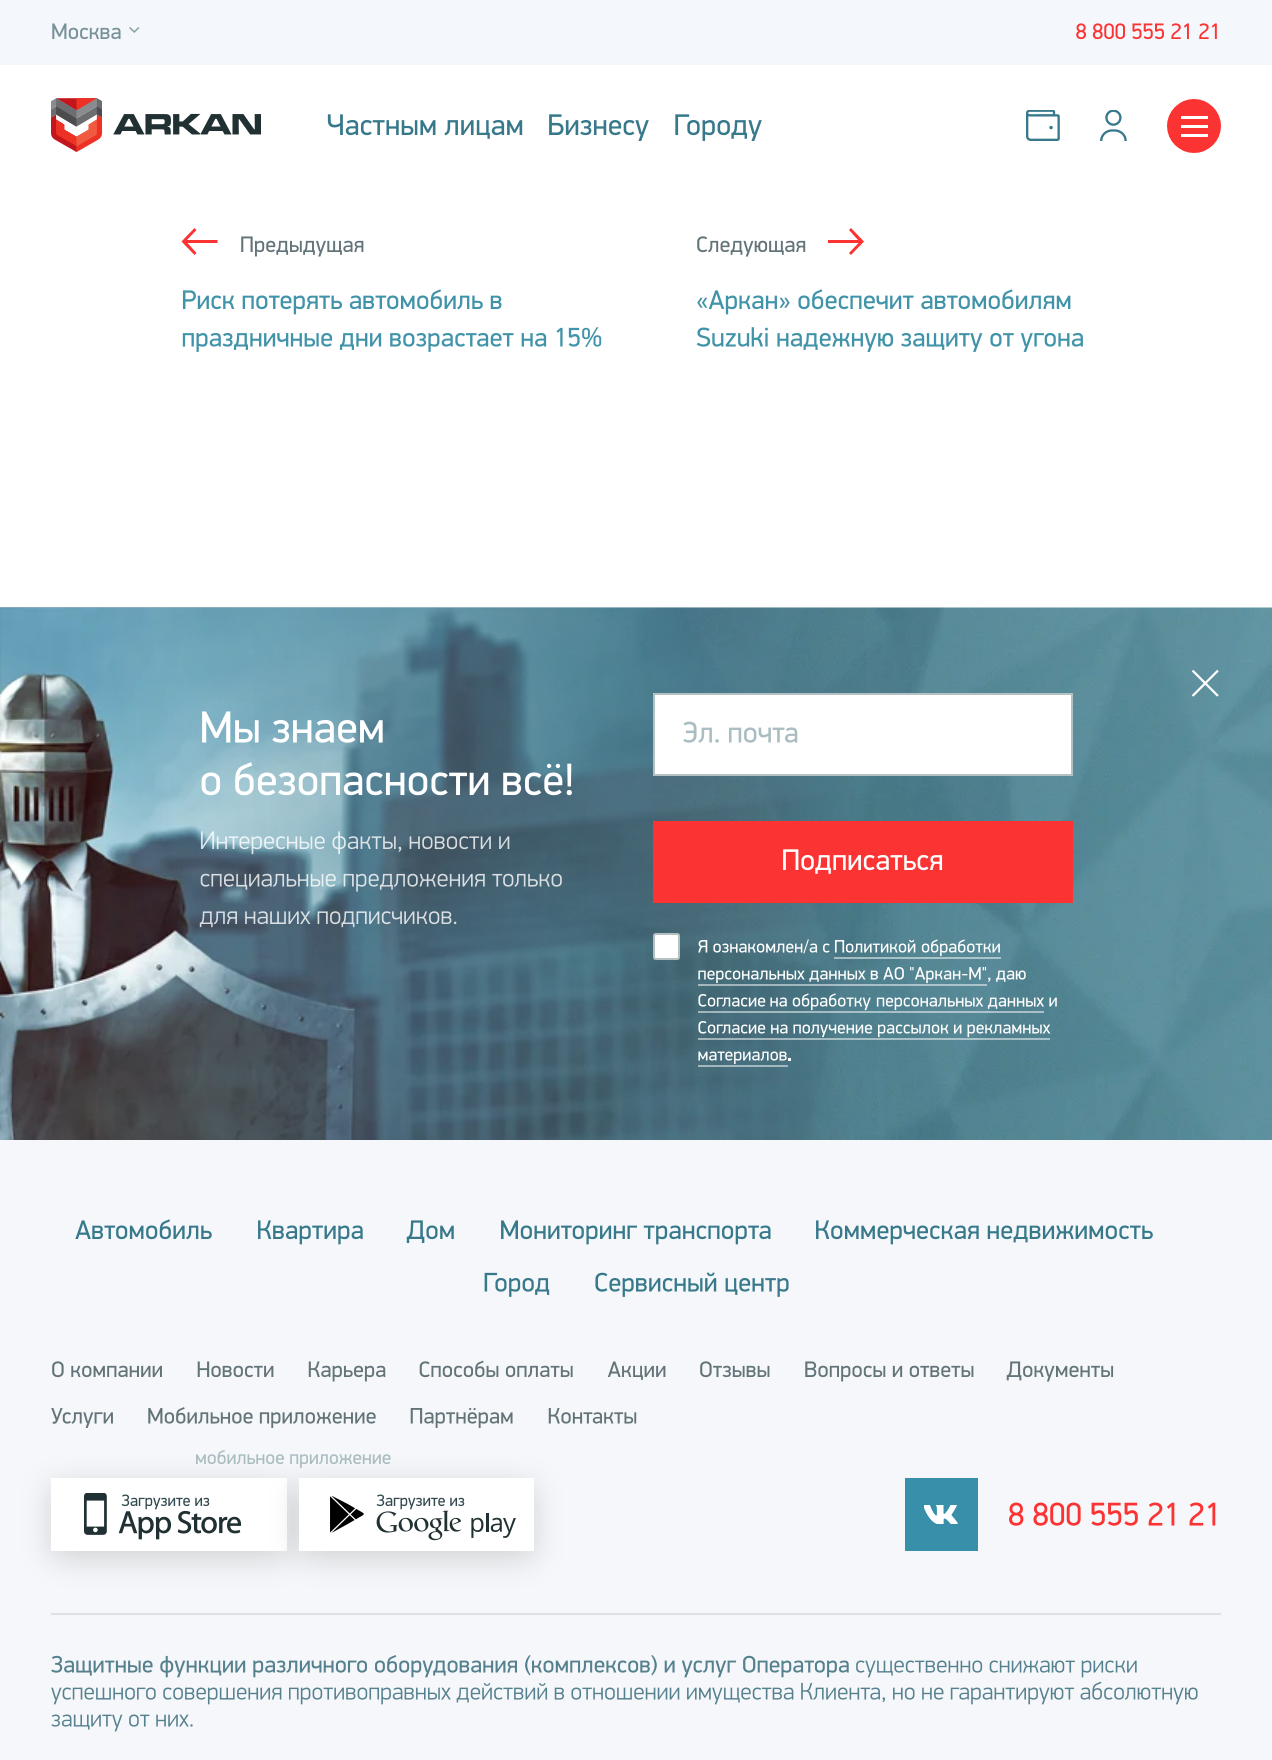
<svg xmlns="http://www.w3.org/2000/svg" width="1272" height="1760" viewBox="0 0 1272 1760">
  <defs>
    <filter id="blur1" x="-50%" y="-200%" width="200%" height="500%"><feGaussianBlur stdDeviation="15"/></filter>
  </defs>
  <rect width="100%" height="100%" fill="#ffffff"/>
  <rect x="0" y="0" width="1272" height="65" fill="#f4f7fb"/>
  <image x="52" y="23" width="69" height="17" href="img1.png"/>
  <image x="129" y="27" width="11" height="6" href="img2.png"/>
  <image x="1076" y="23" width="141" height="17" href="img3.png"/>
  <image x="51" y="98" width="210" height="55" href="img4.png"/>
  <image x="327" y="114" width="196" height="25" href="img5.png"/>
  <image x="549" y="114" width="100" height="27" href="img6.png"/>
  <image x="675" y="114" width="87" height="27" href="img7.png"/>
  <image x="1026" y="110" width="34" height="31" href="img8.png"/>
  <image x="1100" y="110" width="27" height="31" href="img9.png"/>
  <circle cx="1194" cy="126" r="27" fill="#fb3333"/>
  <rect x="1181" y="134" width="27" height="3" fill="#ffffff"/>
  <rect x="1181" y="116" width="27" height="3" fill="#ffffff"/>
  <rect x="1181" y="125" width="27" height="3" fill="#ffffff"/>
  <path d="M194.5 228L196.5 230L187 240H217.5V243H187.5L196.5 253L194.5 255L181.5 241.5Z" fill="#fb3333"/>
  <image x="241" y="236" width="123" height="21" href="img10.png"/>
  <image x="182" y="289" width="320" height="26" href="img11.png"/>
  <image x="182" y="327" width="420" height="25" href="img12.png"/>
  <image x="697" y="236" width="109" height="21" href="img13.png"/>
  <path d="M851 255L849 253L858.5 243H828V240H858L849 230L851 228L864 241.5Z" fill="#fb3333"/>
  <image x="697" y="289" width="374" height="26" href="img14.png"/>
  <image x="696" y="327" width="387" height="25" href="img15.png"/>
  <image x="0" y="607" width="1272" height="533" href="img16.png"/>
  <image x="1191" y="669" width="28" height="28" href="img17.png"/>
  <image x="202" y="711" width="181" height="32" href="img18.png"/>
  <image x="201" y="762" width="371" height="34" href="img19.png"/>
  <image x="200" y="831" width="310" height="24" href="img20.png"/>
  <image x="200" y="873" width="285" height="19" href="img21.png"/>
  <image x="492" y="873" width="70" height="14" href="img22.png"/>
  <image x="199" y="911" width="258" height="17" href="img23.png"/>
  <rect x="654" y="694" width="418" height="81" fill="#ffffff" stroke="#b5c0c3" stroke-width="2"/>
  <image x="683" y="721" width="115" height="22" href="img24.png"/>
  <rect x="653" y="821" width="420" height="82" fill="#fb3333"/>
  <image x="783" y="849" width="160" height="25" href="img25.png"/>
  <rect x="654" y="934" width="25" height="25" rx="2" fill="#ffffff" stroke="#b5c0c3" stroke-width="2"/>
  <image x="698" y="939" width="132" height="15" href="img26.png"/>
  <image x="834" y="939" width="82" height="14" href="img27.png"/>
  <image x="921" y="939" width="79" height="18" href="img28.png"/>
  <rect x="834" y="957" width="167" height="2" fill="#ffffff" fill-opacity="0.5"/>
  <image x="698" y="967" width="289" height="17" href="img29.png"/>
  <image x="988" y="970" width="38" height="12" href="img30.png"/>
  <rect x="698" y="984" width="289" height="2" fill="#ffffff" fill-opacity="0.5"/>
  <image x="698" y="994" width="68" height="13" href="img31.png"/>
  <image x="770" y="993" width="101" height="18" href="img32.png"/>
  <image x="876" y="997" width="168" height="14" href="img33.png"/>
  <image x="1049" y="997" width="8" height="10" href="img34.png"/>
  <rect x="698" y="1011" width="346" height="2" fill="#ffffff" fill-opacity="0.5"/>
  <image x="698" y="1021" width="353" height="17" href="img35.png"/>
  <rect x="698" y="1038" width="352" height="2" fill="#ffffff" fill-opacity="0.5"/>
  <image x="698" y="1051" width="89" height="14" href="img36.png"/>
  <rect x="788" y="1058" width="3" height="3" fill="#ffffff"/>
  <rect x="698" y="1065" width="90" height="2" fill="#ffffff" fill-opacity="0.5"/>
  <rect x="0" y="1140" width="1272" height="620" fill="#f5f7fa"/>
  <image x="75" y="1219" width="137" height="21" href="img37.png"/>
  <image x="258" y="1220" width="105" height="25" href="img38.png"/>
  <image x="406" y="1220" width="48" height="23" href="img39.png"/>
  <image x="501" y="1220" width="270" height="25" href="img40.png"/>
  <image x="816" y="1220" width="337" height="25" href="img41.png"/>
  <image x="484" y="1272" width="66" height="25" href="img42.png"/>
  <image x="595" y="1272" width="194" height="25" href="img43.png"/>
  <image x="52" y="1361" width="110" height="17" href="img44.png"/>
  <image x="197" y="1361" width="77" height="17" href="img45.png"/>
  <image x="308" y="1361" width="78" height="21" href="img46.png"/>
  <image x="419" y="1360" width="154" height="18" href="img47.png"/>
  <image x="607" y="1361" width="59" height="19" href="img48.png"/>
  <image x="700" y="1361" width="70" height="17" href="img49.png"/>
  <image x="805" y="1361" width="169" height="21" href="img50.png"/>
  <image x="1006" y="1361" width="108" height="21" href="img51.png"/>
  <image x="51" y="1408" width="62" height="20" href="img52.png"/>
  <image x="148" y="1407" width="228" height="21" href="img53.png"/>
  <image x="410" y="1407" width="103" height="21" href="img54.png"/>
  <image x="548" y="1408" width="89" height="16" href="img55.png"/>
  <image x="196" y="1449" width="195" height="19" href="img59.png"/>
  <rect x="51" y="1485" width="236" height="74" fill="#000000" fill-opacity="0.15" filter="url(#blur1)"/>
  <rect x="51" y="1478" width="236" height="73" fill="#ffffff"/>
  <image x="84" y="1493" width="158" height="47" href="img56.png"/>
  <image x="121" y="1494" width="89" height="16" href="img57.png"/>
  <rect x="299" y="1485" width="235" height="74" fill="#000000" fill-opacity="0.15" filter="url(#blur1)"/>
  <rect x="299" y="1478" width="235" height="73" fill="#ffffff"/>
  <image x="330" y="1496" width="186" height="45" href="img58.png"/>
  <image x="376" y="1494" width="89" height="16" href="img57.png"/>
  <rect x="905" y="1478" width="73" height="73" fill="#378faa"/>
  <image x="924" y="1505" width="34" height="19" href="img60.png"/>
  <image x="1009" y="1502" width="207" height="24" href="img61.png"/>
  <rect x="51" y="1613" width="1170" height="2" fill="#dbe1e4"/>
  <image x="51" y="1655" width="798" height="23" href="img62.png"/>
  <image x="856" y="1660" width="281" height="18" href="img63.png"/>
  <image x="51" y="1681" width="1147" height="24" href="img64.png"/>
  <image x="51" y="1714" width="142" height="18" href="img65.png"/>
</svg>
